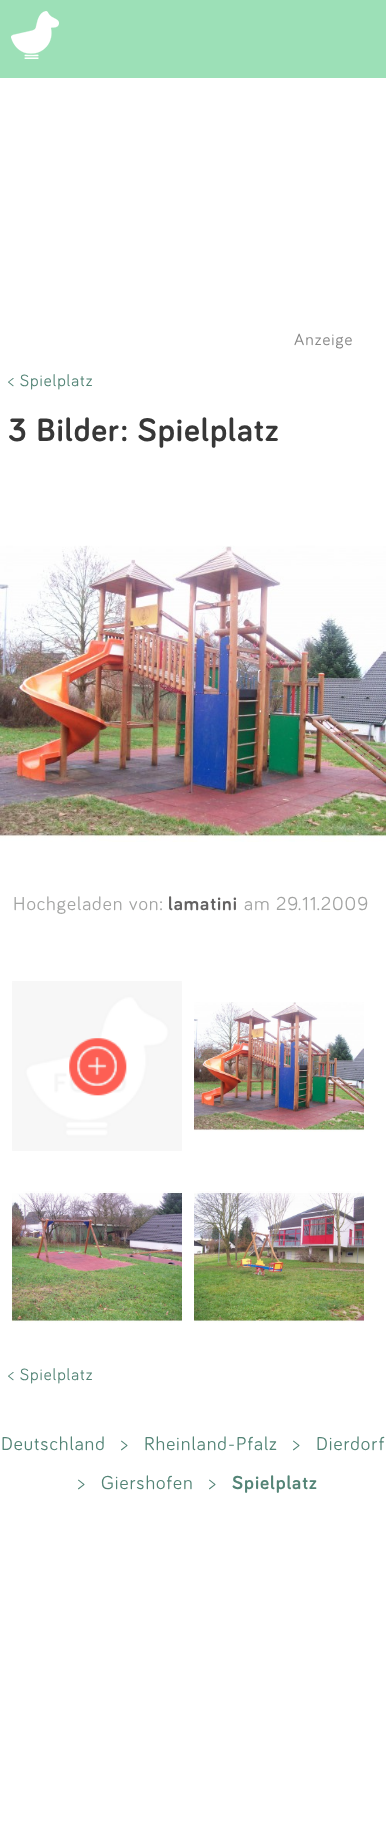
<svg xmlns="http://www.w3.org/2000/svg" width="386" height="1848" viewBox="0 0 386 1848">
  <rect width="100%" height="100%" fill="#ffffff"/>
  <rect x="0" y="0" width="386" height="78" fill="#9ce0b7"/>
  <image x="11" y="11" width="48" height="48" href="img1.png"/>
  <text x="294" y="345" font-family="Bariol" font-size="16.75" letter-spacing="1" fill="#878787">Anzeige</text>
  <text x="8" y="386" font-family="Bariol" font-size="16.75" letter-spacing="1" fill="#538476">&lt; Spielplatz</text>
  <text x="8" y="441" font-family="Bariol" font-size="33.5" font-weight="bold" letter-spacing="1" fill="#373737">3 Bilder: Spielplatz</text>
  <image x="0" y="545" width="386" height="297" href="img2.png"/>
  <text x="13" y="910" font-family="Bariol" font-size="19.25" letter-spacing="1" fill="#a3a4a3">Hochgeladen von:</text>
  <text x="168" y="910" font-family="Bariol" font-size="19.25" font-weight="bold" letter-spacing="1" fill="#636161">lamatini</text>
  <text x="244" y="910" font-family="Bariol" font-size="19.25" letter-spacing="1" fill="#a3a4a3">am 29.11.2009</text>
  <image x="12" y="981" width="170" height="170" href="img3.png"/>
  <image x="194" y="1002" width="170" height="130" href="img4.png"/>
  <image x="12" y="1191" width="170" height="132" href="img5.png"/>
  <image x="194" y="1191" width="170" height="132" href="img6.png"/>
  <text x="8" y="1380" font-family="Bariol" font-size="16.75" letter-spacing="1" fill="#538476">&lt; Spielplatz</text>
  <text x="1" y="1450" font-family="Bariol" font-size="19.25" letter-spacing="1" fill="#538476">Deutschland</text>
  <text x="121" y="1450" font-family="Bariol" font-size="19.25" letter-spacing="1" fill="#538476">&gt;</text>
  <text x="144" y="1450" font-family="Bariol" font-size="19.25" letter-spacing="1" fill="#538476">Rheinland-Pfalz</text>
  <text x="293" y="1450" font-family="Bariol" font-size="19.25" letter-spacing="1" fill="#538476">&gt;</text>
  <text x="316" y="1450" font-family="Bariol" font-size="19.25" letter-spacing="1" fill="#538476">Dierdorf</text>
  <text x="78" y="1489" font-family="Bariol" font-size="19.25" letter-spacing="1" fill="#538476">&gt;</text>
  <text x="101" y="1489" font-family="Bariol" font-size="19.25" letter-spacing="1" fill="#538476">Giershofen</text>
  <text x="209" y="1489" font-family="Bariol" font-size="19.25" letter-spacing="1" fill="#538476">&gt;</text>
  <text x="232" y="1489" font-family="Bariol" font-size="19.25" font-weight="bold" letter-spacing="1" fill="#538476">Spielplatz</text>
</svg>
